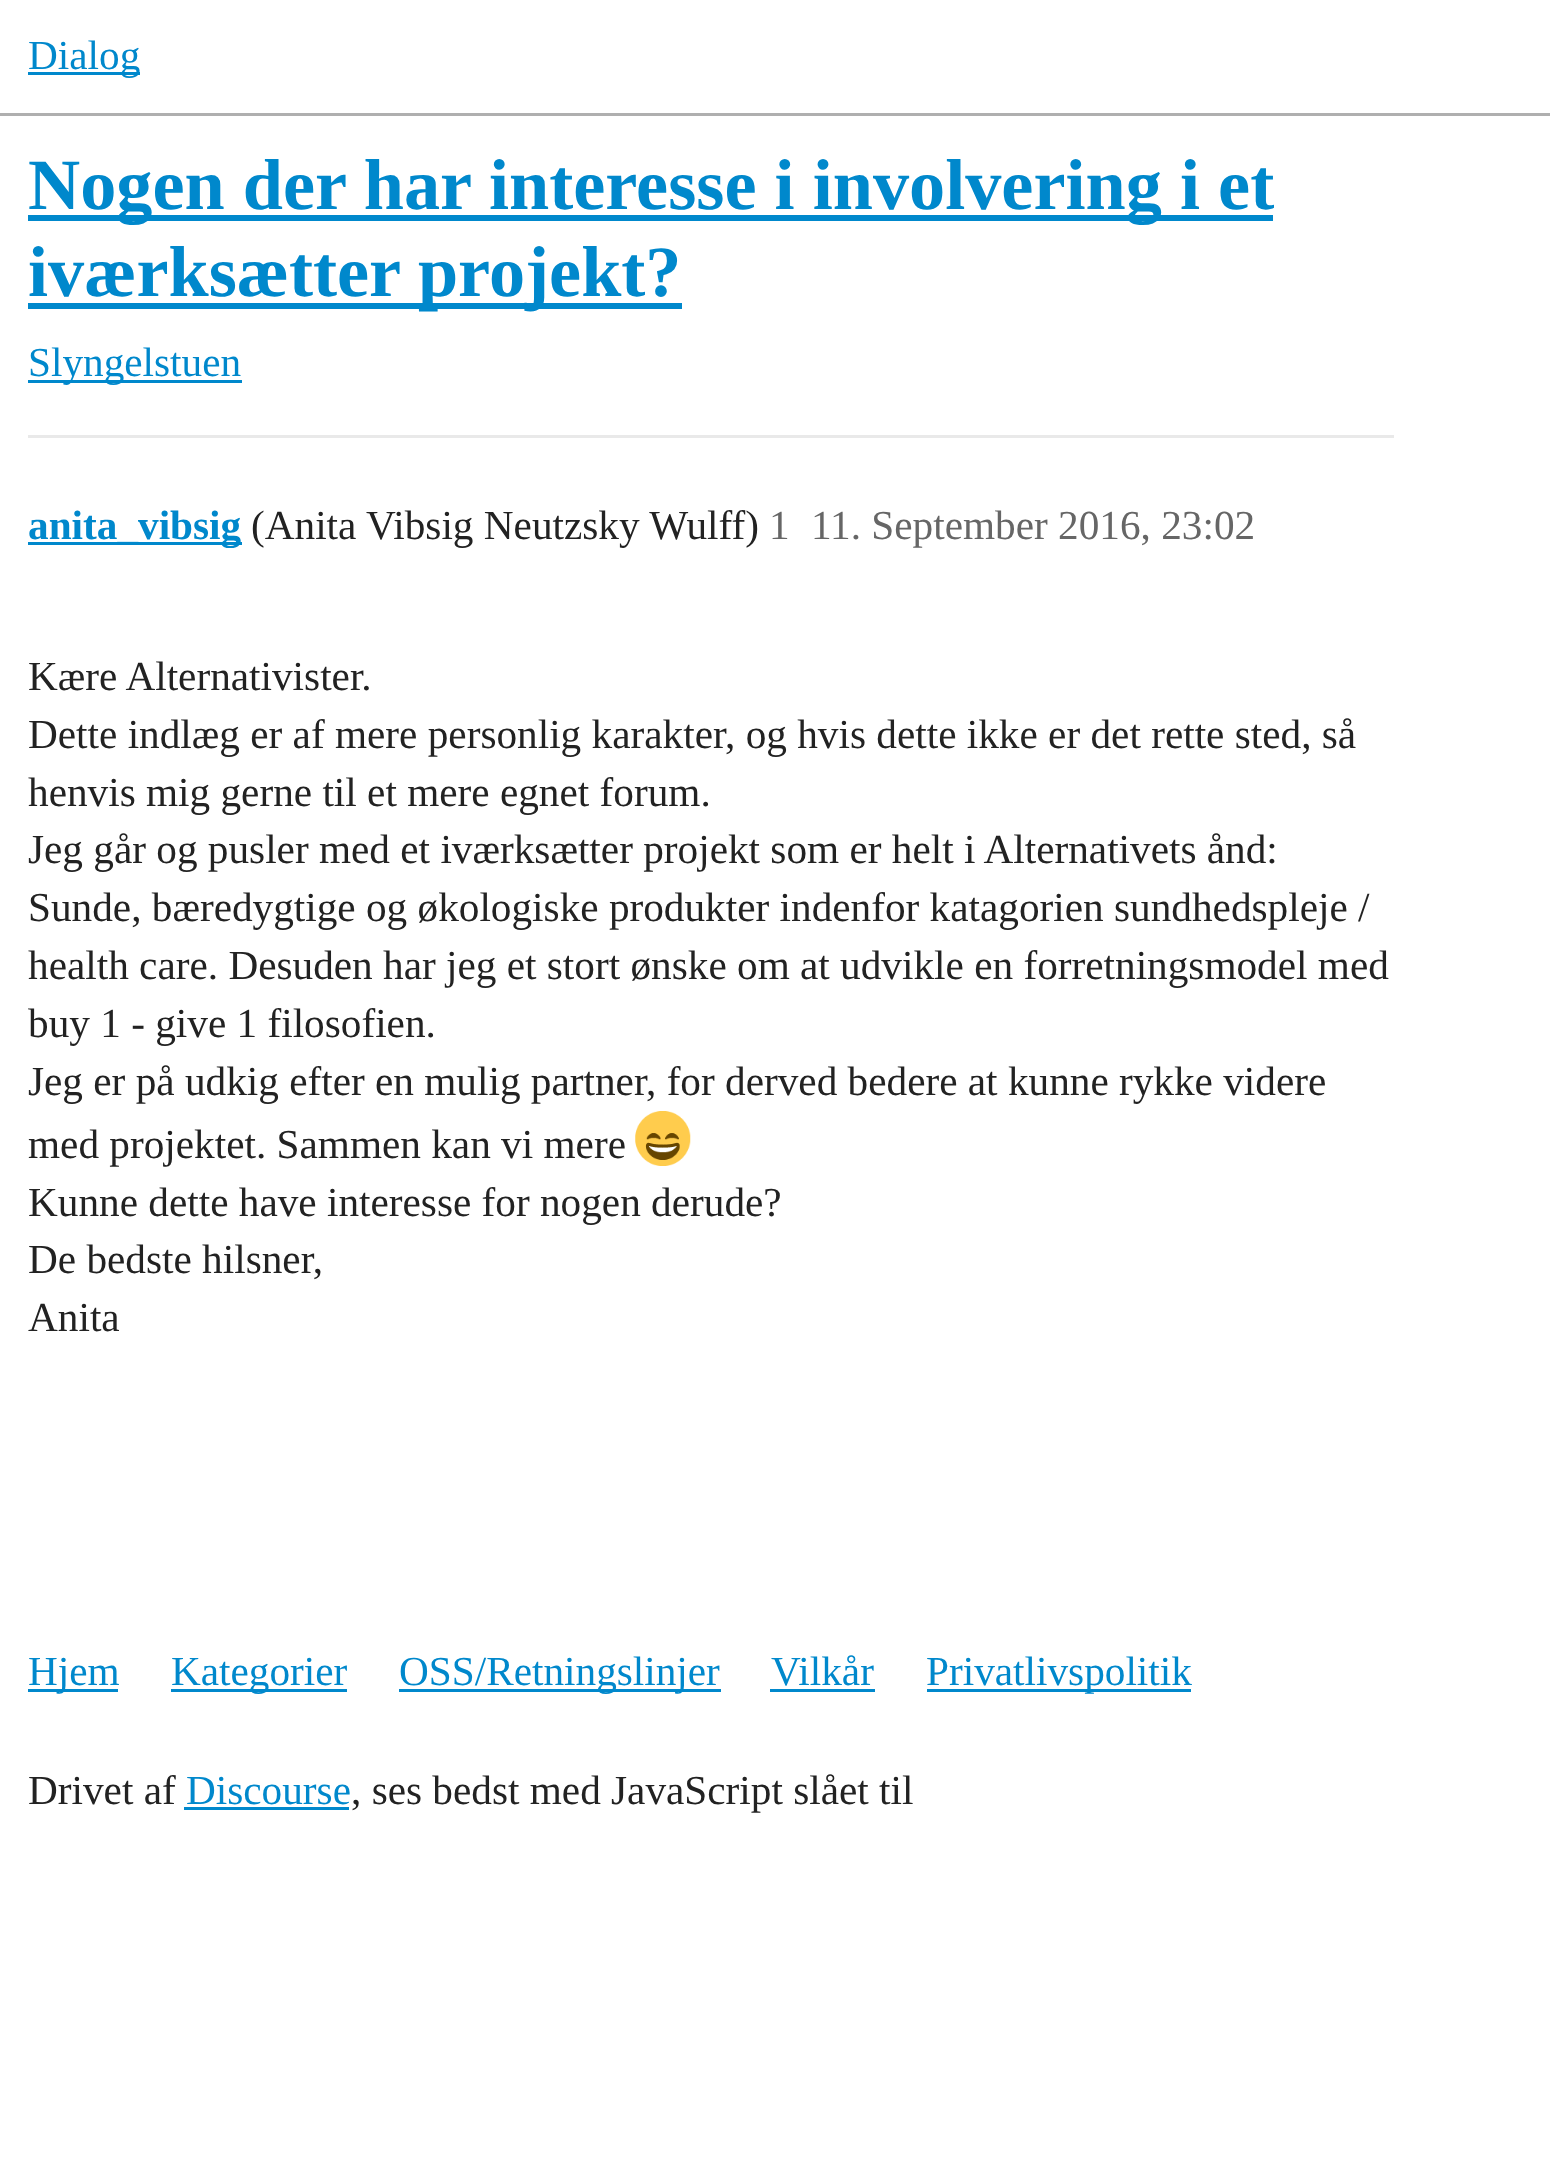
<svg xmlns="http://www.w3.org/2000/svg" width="1550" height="2157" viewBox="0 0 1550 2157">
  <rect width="100%" height="100%" fill="#ffffff"/>
  <rect x="0" y="113" width="1550" height="3" fill="#afafaf"/>
  <rect x="28" y="72" width="112" height="3" fill="#0088cc"/>
  <text x="28" y="69" font-family="Liberation Serif" font-size="41.25" fill="#0088cc">Dialog</text>
  <rect x="28" y="215" width="1245" height="6" fill="#0088cc"/>
  <text x="28" y="209" font-family="Liberation Serif" font-size="72.25" font-weight="bold" fill="#0088cc">Nogen der har interesse i involvering i et</text>
  <rect x="28" y="303" width="654" height="6" fill="#0088cc"/>
  <text x="28" y="296" font-family="Liberation Serif" font-size="72.25" font-weight="bold" fill="#0088cc">iværksætter projekt?</text>
  <rect x="28" y="380" width="214" height="3" fill="#0088cc"/>
  <text x="28" y="376" font-family="Liberation Serif" font-size="41.25" fill="#0088cc">Slyngelstuen</text>
  <rect x="28" y="435" width="1366" height="3" fill="#e9e9e9"/>
  <rect x="28" y="542" width="214" height="3" fill="#0088cc"/>
  <text x="28" y="539" font-family="Liberation Serif" font-size="41.25" font-weight="bold" fill="#0088cc">anita_vibsig</text>
  <text x="251" y="539" font-family="Liberation Serif" font-size="41.25" fill="#222222">(Anita Vibsig Neutzsky Wulff)</text>
  <text x="769" y="539" font-family="Liberation Serif" font-size="41.25" fill="#666666">1</text>
  <text x="811" y="539" font-family="Liberation Serif" font-size="41.25" fill="#666666">11. September 2016, 23:02</text>
  <text x="28" y="690" font-family="Liberation Serif" font-size="41.25" fill="#222222">Kære Alternativister.</text>
  <text x="28" y="748" font-family="Liberation Serif" font-size="41.25" fill="#222222">Dette indlæg er af mere personlig karakter, og hvis dette ikke er det rette sted, så</text>
  <text x="28" y="806" font-family="Liberation Serif" font-size="41.25" fill="#222222">henvis mig gerne til et mere egnet forum.</text>
  <text x="28" y="863" font-family="Liberation Serif" font-size="41.25" fill="#222222">Jeg går og pusler med et iværksætter projekt som er helt i Alternativets ånd:</text>
  <text x="28" y="921" font-family="Liberation Serif" font-size="41.25" fill="#222222">Sunde, bæredygtige og økologiske produkter indenfor katagorien sundhedspleje /</text>
  <text x="28" y="979" font-family="Liberation Serif" font-size="41.25" fill="#222222">health care. Desuden har jeg et stort ønske om at udvikle en forretningsmodel med</text>
  <text x="28" y="1037" font-family="Liberation Serif" font-size="41.25" fill="#222222">buy 1 - give 1 filosofien.</text>
  <text x="28" y="1095" font-family="Liberation Serif" font-size="41.25" fill="#222222">Jeg er på udkig efter en mulig partner, for derved bedere at kunne rykke videre</text>
  <text x="28" y="1158" font-family="Liberation Serif" font-size="41.25" fill="#222222">med projektet. Sammen kan vi mere</text>
  <image x="635" y="1111" width="56" height="55" href="img1.png"/>
  <text x="28" y="1216" font-family="Liberation Serif" font-size="41.25" fill="#222222">Kunne dette have interesse for nogen derude?</text>
  <text x="28" y="1273" font-family="Liberation Serif" font-size="41.25" fill="#222222">De bedste hilsner,</text>
  <text x="28" y="1331" font-family="Liberation Serif" font-size="41.25" fill="#222222">Anita</text>
  <rect x="28" y="1689" width="90" height="3" fill="#0088cc"/>
  <text x="28" y="1685" font-family="Liberation Serif" font-size="41.25" fill="#0088cc">Hjem</text>
  <rect x="171" y="1689" width="176" height="3" fill="#0088cc"/>
  <text x="171" y="1685" font-family="Liberation Serif" font-size="41.25" fill="#0088cc">Kategorier</text>
  <rect x="399" y="1689" width="322" height="3" fill="#0088cc"/>
  <text x="399" y="1685" font-family="Liberation Serif" font-size="41.25" fill="#0088cc">OSS/Retningslinjer</text>
  <text x="771" y="1685" font-family="Liberation Serif" font-size="41.25" fill="#0088cc">Vilkår</text>
  <rect x="770" y="1689" width="105" height="3" fill="#0088cc"/>
  <rect x="927" y="1689" width="264" height="3" fill="#0088cc"/>
  <text x="926" y="1685" font-family="Liberation Serif" font-size="41.25" fill="#0088cc">Privatlivspolitik</text>
  <text x="28" y="1804" font-family="Liberation Serif" font-size="41.25" fill="#222222">Drivet af</text>
  <text x="186" y="1804" font-family="Liberation Serif" font-size="41.25" fill="#0088cc">Discourse</text>
  <rect x="184" y="1807" width="165" height="3" fill="#0088cc"/>
  <text x="351" y="1804" font-family="Liberation Serif" font-size="41.25" fill="#222222">, ses bedst med JavaScript slået til</text>
</svg>
